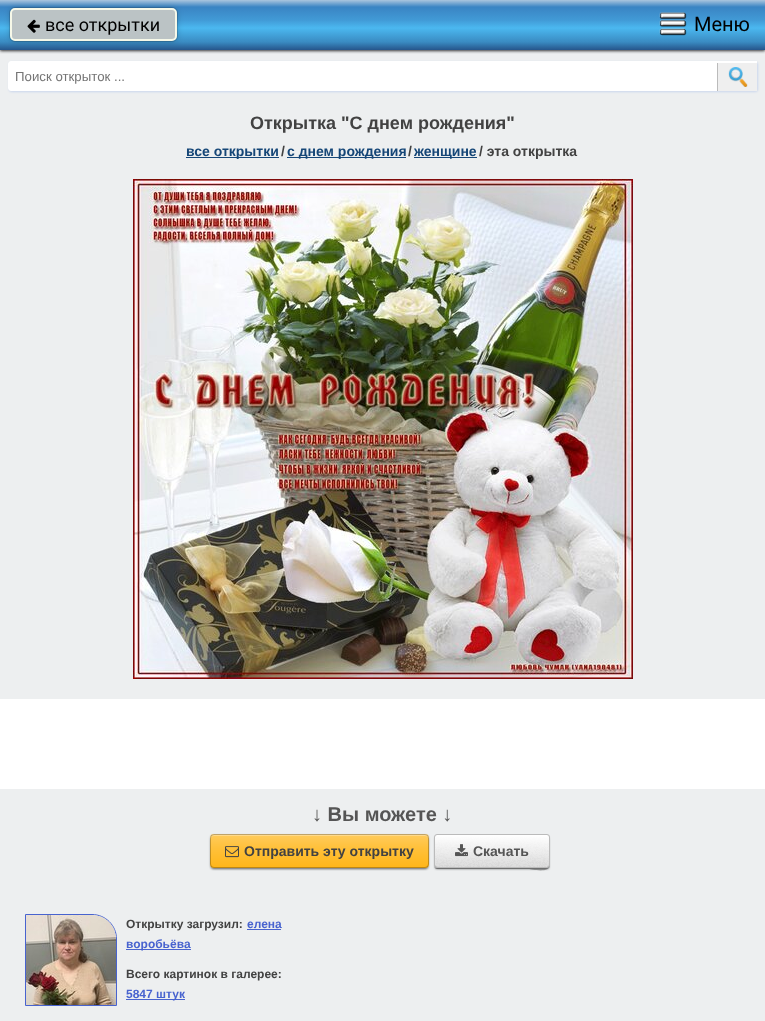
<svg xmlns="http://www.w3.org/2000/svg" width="765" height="1021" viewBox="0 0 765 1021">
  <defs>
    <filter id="blur1" x="-50%" y="-200%" width="200%" height="500%"><feGaussianBlur stdDeviation="1.5"/></filter>
    <linearGradient id="g1" gradientUnits="userSpaceOnUse" x1="383" y1="0" x2="383" y2="50"><stop offset="0" stop-color="#cedbe9"/><stop offset="0" stop-color="#aac5de"/><stop offset="0.14" stop-color="#3a84c3"/><stop offset="0.4" stop-color="#419ad6"/><stop offset="0.56" stop-color="#4bb8f0"/><stop offset="0.84" stop-color="#3a8bc2"/><stop offset="1" stop-color="#26558b"/></linearGradient>
    <filter id="blur2" x="-50%" y="-200%" width="200%" height="500%"><feGaussianBlur stdDeviation="3"/></filter>
    <filter id="blur3" x="-50%" y="-200%" width="200%" height="500%"><feGaussianBlur stdDeviation="1"/></filter>
    <linearGradient id="g2" gradientUnits="userSpaceOnUse" x1="320" y1="834" x2="320" y2="868"><stop offset="0" stop-color="#ffffff" stop-opacity="0.3"/><stop offset="0.4" stop-color="#ffffff" stop-opacity="0.15"/><stop offset="1" stop-color="#ffffff" stop-opacity="0"/></linearGradient>
  </defs>
  <rect width="100%" height="100%" fill="#edeff0"/>
  <rect x="0" y="1" width="765" height="50" fill="#333333" filter="url(#blur1)"/>
  <rect x="0" y="0" width="765" height="50" fill="url(#g1)"/>
  <rect x="10" y="8" width="167" height="33" rx="5" fill="#000000" fill-opacity="0.2" filter="url(#blur2)"/>
  <rect x="9.5" y="7.5" width="168" height="34" rx="5.5" fill="none" stroke="#000000" stroke-opacity="0.15"/>
  <rect x="11" y="9" width="165" height="31" rx="4" fill="#bbc3c5" stroke="#f6f8e8" stroke-width="2"/>
  <image x="27" y="19" width="13" height="14" href="img1.png"/>
  <text x="45" y="31" font-family="Roboto" font-size="18" fill="#000000">все открытки</text>
  <image x="659" y="12" width="28" height="24" href="img2.png"/>
  <text x="694" y="31" font-family="Roboto" font-size="20" fill="#000000">Меню</text>
  <rect x="9" y="62" width="749" height="30" rx="3" fill="#c9d5ec" filter="url(#blur3)"/>
  <path d="M11 61H757V91H11C9.5 91 8 89.5 8 88V64C8 62.5 9.5 61 11 61Z" fill="#ffffff"/>
  <text x="15" y="81" font-family="Liberation Sans" font-size="13.25" fill="#757575">Поиск открыток ...</text>
  <rect x="718" y="63" width="39" height="28" fill="#efefef"/>
  <image x="728" y="67" width="20" height="20" href="img3.png"/>
  <rect x="717" y="63" width="1" height="28" fill="#bbbbbb"/>
  <text x="250" y="129" font-family="Liberation Sans" font-size="18" font-weight="bold" fill="#424242">Открытка "С днем рождения"</text>
  <rect x="186" y="157" width="93" height="1" fill="#154677"/>
  <text x="186" y="156" font-family="Liberation Sans" font-size="14" font-weight="bold" fill="#154677">все открытки</text>
  <text x="281" y="156" font-family="Liberation Sans" font-size="14" font-weight="bold" fill="#424242">/</text>
  <rect x="287" y="157" width="119" height="1" fill="#154677"/>
  <text x="287" y="156" font-family="Liberation Sans" font-size="14" font-weight="bold" fill="#154677">c днем рождения</text>
  <text x="408" y="156" font-family="Liberation Sans" font-size="14" font-weight="bold" fill="#424242">/</text>
  <rect x="414" y="157" width="63" height="1" fill="#154677"/>
  <text x="414" y="156" font-family="Liberation Sans" font-size="14" font-weight="bold" fill="#154677">женщине</text>
  <text x="479" y="156" font-family="Liberation Sans" font-size="14" font-weight="bold" fill="#424242">/ эта открытка</text>
  <image x="133" y="179" width="500" height="500" href="img4.png"/>
  <rect x="0" y="699" width="765" height="90" fill="#ffffff"/>
  <text x="312" y="821" font-family="Liberation Sans" font-size="20" font-weight="bold" fill="#555555">↓ Вы можете ↓</text>
  <rect x="211" y="837" width="217" height="32" rx="3" fill="#000000" fill-opacity="0.5" filter="url(#blur3)"/>
  <rect x="210" y="835" width="219" height="34" rx="4" fill="#000000" fill-opacity="0.15" filter="url(#blur3)"/>
  <rect x="210" y="834" width="219" height="34" rx="4" fill="#ffb619"/>
  <rect x="210" y="834" width="219" height="34" rx="4" fill="url(#g2)"/>
  <path d="M214 836H425C427 836 429 838 429 840C429 837 429 835 426 834H213C210 835 210 837 210 840C210 838 212 836 214 836Z" fill="#ffffff" fill-opacity="0.3"/>
  <rect x="210.5" y="834.5" width="218" height="33" rx="3.5" fill="none" stroke="#000000" stroke-opacity="0.25"/>
  <image x="225" y="846" width="14" height="12" href="img5.png"/>
  <text x="244" y="856" font-family="Liberation Sans" font-size="14" font-weight="bold" fill="#424242">Отправить эту открытку</text>
  <rect x="435" y="837" width="114" height="32" rx="2" fill="#000000" fill-opacity="0.5" filter="url(#blur3)"/>
  <path d="M434 865C434 867 435 869 437 869H529C530 869 550 874 550 865L549 867L547 868H437C435 868 434 867 434 865Z" fill="#000000" fill-opacity="0.3"/>
  <rect x="435" y="835" width="114" height="32" rx="2" fill="#dddddd"/>
  <image x="435" y="835" width="114" height="32" href="img6.png"/>
  <rect x="434.5" y="834.5" width="115" height="33" rx="2.5" fill="none" stroke="#bbbbbb"/>
  <image x="455" y="844" width="13" height="13" href="img7.png"/>
  <text x="473" y="856" font-family="Liberation Sans" font-size="14" font-weight="bold" fill="#555555">Скачать</text>
  <path d="M25.5 914.5H92C105.5 914.5 116.5 925.5 116.5 939V1005.5H25.5Z" fill="none" stroke="#4863cf"/>
  <image x="26" y="915" width="90" height="90" href="img8.png"/>
  <text x="126" y="928" font-family="Liberation Sans" font-size="12" font-weight="bold" fill="#424242">Открытку загрузил:</text>
  <text x="247" y="928" font-family="Liberation Sans" font-size="12" font-weight="bold" fill="#4863cf">елена</text>
  <rect x="247" y="929" width="34" height="1" fill="#4863cf"/>
  <rect x="126" y="949" width="65" height="1" fill="#4863cf"/>
  <text x="126" y="948" font-family="Liberation Sans" font-size="12" font-weight="bold" fill="#4863cf">воробьёва</text>
  <text x="126" y="978" font-family="Liberation Sans" font-size="12" font-weight="bold" fill="#424242">Всего картинок в галерее:</text>
  <rect x="126" y="999" width="59" height="1" fill="#4863cf"/>
  <text x="126" y="998" font-family="Liberation Sans" font-size="12" font-weight="bold" fill="#4863cf">5847 штук</text>
</svg>
